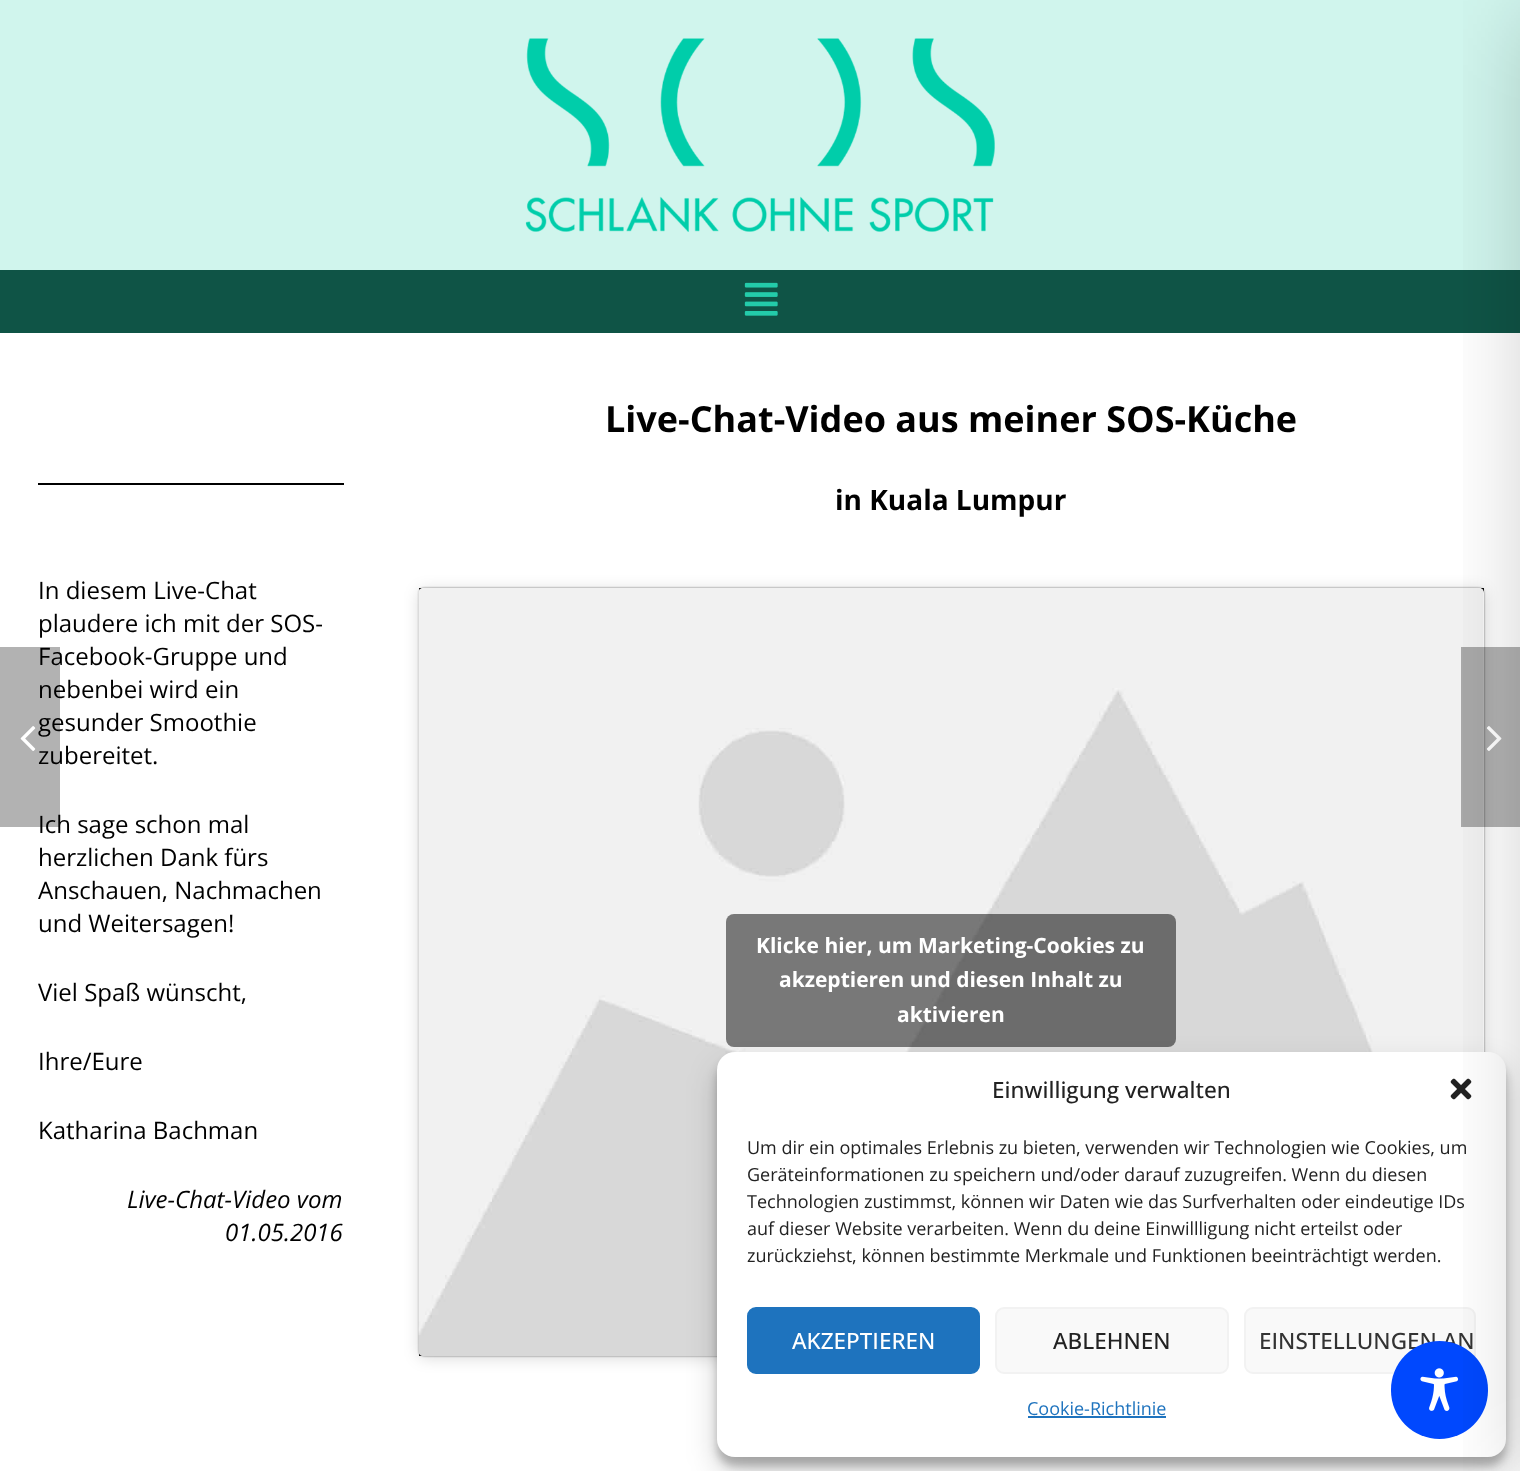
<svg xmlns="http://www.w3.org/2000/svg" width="1520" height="1471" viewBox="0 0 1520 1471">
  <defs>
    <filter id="blur1" x="-50%" y="-200%" width="200%" height="500%"><feGaussianBlur stdDeviation="7.5"/></filter>
    <filter id="blur2" x="-50%" y="-200%" width="200%" height="500%"><feGaussianBlur stdDeviation="1"/></filter>
    <filter id="blur3" x="-50%" y="-200%" width="200%" height="500%"><feGaussianBlur stdDeviation="4.5"/></filter>
    <filter id="blur4" x="-50%" y="-200%" width="200%" height="500%"><feGaussianBlur stdDeviation="15"/></filter>
    <filter id="blur5" x="-50%" y="-200%" width="200%" height="500%"><feGaussianBlur stdDeviation="45"/></filter>
  </defs>
  <rect width="100%" height="100%" fill="#ffffff"/>
  <rect x="0" y="0" width="1520" height="270" fill="#d0f5ed"/>
  <image x="525" y="38" width="470" height="194" href="img1.png"/>
  <rect x="0" y="270" width="1520" height="63" fill="#0f5446"/>
  <image x="744" y="282" width="34" height="34" href="img2.png"/>
  <rect x="38" y="483" width="306" height="2" fill="#000000"/>
  <text x="38" y="599" font-family="Open Sans" font-size="24" fill="#000000">In diesem Live-Chat</text>
  <text x="38" y="632" font-family="Open Sans" font-size="24" fill="#000000">plaudere ich mit der SOS-</text>
  <text x="38" y="665" font-family="Open Sans" font-size="24" fill="#000000">Facebook-Gruppe und</text>
  <text x="38" y="698" font-family="Open Sans" font-size="24" fill="#000000">nebenbei wird ein</text>
  <text x="38" y="731" font-family="Open Sans" font-size="24" fill="#000000">gesunder Smoothie</text>
  <text x="38" y="764" font-family="Open Sans" font-size="24" fill="#000000">zubereitet.</text>
  <text x="38" y="833" font-family="Open Sans" font-size="24" fill="#000000">Ich sage schon mal</text>
  <text x="38" y="866" font-family="Open Sans" font-size="24" fill="#000000">herzlichen Dank fürs</text>
  <text x="38" y="899" font-family="Open Sans" font-size="24" fill="#000000">Anschauen, Nachmachen</text>
  <text x="38" y="932" font-family="Open Sans" font-size="24" fill="#000000">und Weitersagen!</text>
  <text x="38" y="1001" font-family="Open Sans" font-size="24" fill="#000000">Viel Spaß wünscht,</text>
  <text x="38" y="1070" font-family="Open Sans" font-size="24" fill="#000000">Ihre/Eure</text>
  <text x="38" y="1139" font-family="Open Sans" font-size="24" fill="#000000">Katharina Bachman</text>
  <text x="127" y="1208" font-family="Open Sans" font-size="24" font-style="italic" fill="#000000">Live-Chat-Video vom</text>
  <text x="225" y="1241" font-family="Open Sans" font-size="24" font-style="italic" fill="#000000">01.05.2016</text>
  <text x="605" y="432" font-family="Open Sans" font-size="36" font-weight="bold" fill="#000000">Live-Chat-Video aus meiner SOS-Küche</text>
  <text x="835" y="510" font-family="Open Sans" font-size="28" font-weight="bold" fill="#000000">in Kuala Lumpur</text>
  <rect x="419" y="588" width="1065" height="768" fill="#111111"/>
  <rect x="419" y="590" width="1065" height="768" rx="5" fill="#000000" fill-opacity="0.15" filter="url(#blur1)"/>
  <rect x="419" y="588" width="1065" height="768" rx="5" fill="#000000" fill-opacity="0.5" filter="url(#blur2)"/>
  <rect x="419" y="588" width="1065" height="768" rx="5" fill="#ffffff"/>
  <image x="418" y="588" width="1066" height="768" href="img3.png"/>
  <rect x="726" y="914" width="450" height="133" rx="8" fill="#000000" fill-opacity="0.5"/>
  <text x="756" y="953" font-family="Open Sans" font-size="21" font-weight="bold" fill="#ffffff">Klicke hier, um Marketing-Cookies zu</text>
  <text x="779" y="987" font-family="Open Sans" font-size="21" font-weight="bold" fill="#ffffff">akzeptieren und diesen Inhalt zu</text>
  <text x="897" y="1022" font-family="Open Sans" font-size="21" font-weight="bold" fill="#ffffff">aktivieren</text>
  <rect x="0" y="647" width="60" height="180" fill="#000000" fill-opacity="0.3"/>
  <image x="20" y="726" width="16" height="25" href="img4.png"/>
  <rect x="1461" y="647" width="59" height="180" fill="#000000" fill-opacity="0.3"/>
  <image x="1486" y="726" width="16" height="25" href="img5.png"/>
  <rect x="717" y="1061" width="789" height="405" rx="18" fill="#000000" fill-opacity="0.23" filter="url(#blur3)"/>
  <rect x="717" y="1067" width="789" height="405" rx="18" fill="#000000" fill-opacity="0.19" filter="url(#blur4)"/>
  <rect x="717" y="1052" width="789" height="405" rx="18" fill="#ffffff"/>
  <image x="1450" y="1078" width="22" height="22" href="img6.png"/>
  <rect x="1245" y="1308" width="230" height="65" rx="8" fill="#f9f9f9" stroke="#f2f2f2" stroke-width="2"/>
  <text x="1259" y="1349" font-family="Open Sans" font-size="22.5" font-weight="500" fill="#333333">EINSTELLUNGEN AN</text>
  <rect x="1391" y="1341" width="97" height="98" rx="48.5" fill="#0048fe"/>
  <image x="1420" y="1368" width="39" height="43" href="img7.png"/>
  <rect x="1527" y="15" width="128" height="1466" fill="#000000" fill-opacity="0.2" filter="url(#blur5)"/>
  <text x="992" y="1098" font-family="Open Sans" font-size="22.5" font-weight="500" fill="#222222">Einwilligung verwalten</text>
  <text x="747" y="1154" font-family="Open Sans" font-size="18" fill="#222222">Um dir ein optimales Erlebnis zu bieten, verwenden wir Technologien wie Cookies, um</text>
  <text x="747" y="1181" font-family="Open Sans" font-size="18" fill="#222222">Geräteinformationen zu speichern und/oder darauf zuzugreifen. Wenn du diesen</text>
  <text x="747" y="1208" font-family="Open Sans" font-size="18" fill="#222222">Technologien zustimmst, können wir Daten wie das Surfverhalten oder eindeutige IDs</text>
  <text x="747" y="1235" font-family="Open Sans" font-size="18" fill="#222222">auf dieser Website verarbeiten. Wenn du deine Einwillligung nicht erteilst oder</text>
  <text x="747" y="1262" font-family="Open Sans" font-size="18" fill="#222222">zurückziehst, können bestimmte Merkmale und Funktionen beeinträchtigt werden.</text>
  <rect x="748" y="1308" width="231" height="65" rx="8" fill="#1e73be" stroke="#1e73be" stroke-width="2"/>
  <text x="792" y="1349" font-family="Open Sans" font-size="22.5" font-weight="500" fill="#ffffff">AKZEPTIEREN</text>
  <rect x="996" y="1308" width="232" height="65" rx="8" fill="#f9f9f9" stroke="#f2f2f2" stroke-width="2"/>
  <text x="1053" y="1349" font-family="Open Sans" font-size="22.5" font-weight="500" fill="#222222">ABLEHNEN</text>
  <text x="1027" y="1415" font-family="Open Sans" font-size="18" fill="#1e73be">Cookie-Richtlinie</text>
  <rect x="1028" y="1416" width="138" height="2" fill="#1e73be"/>
</svg>
